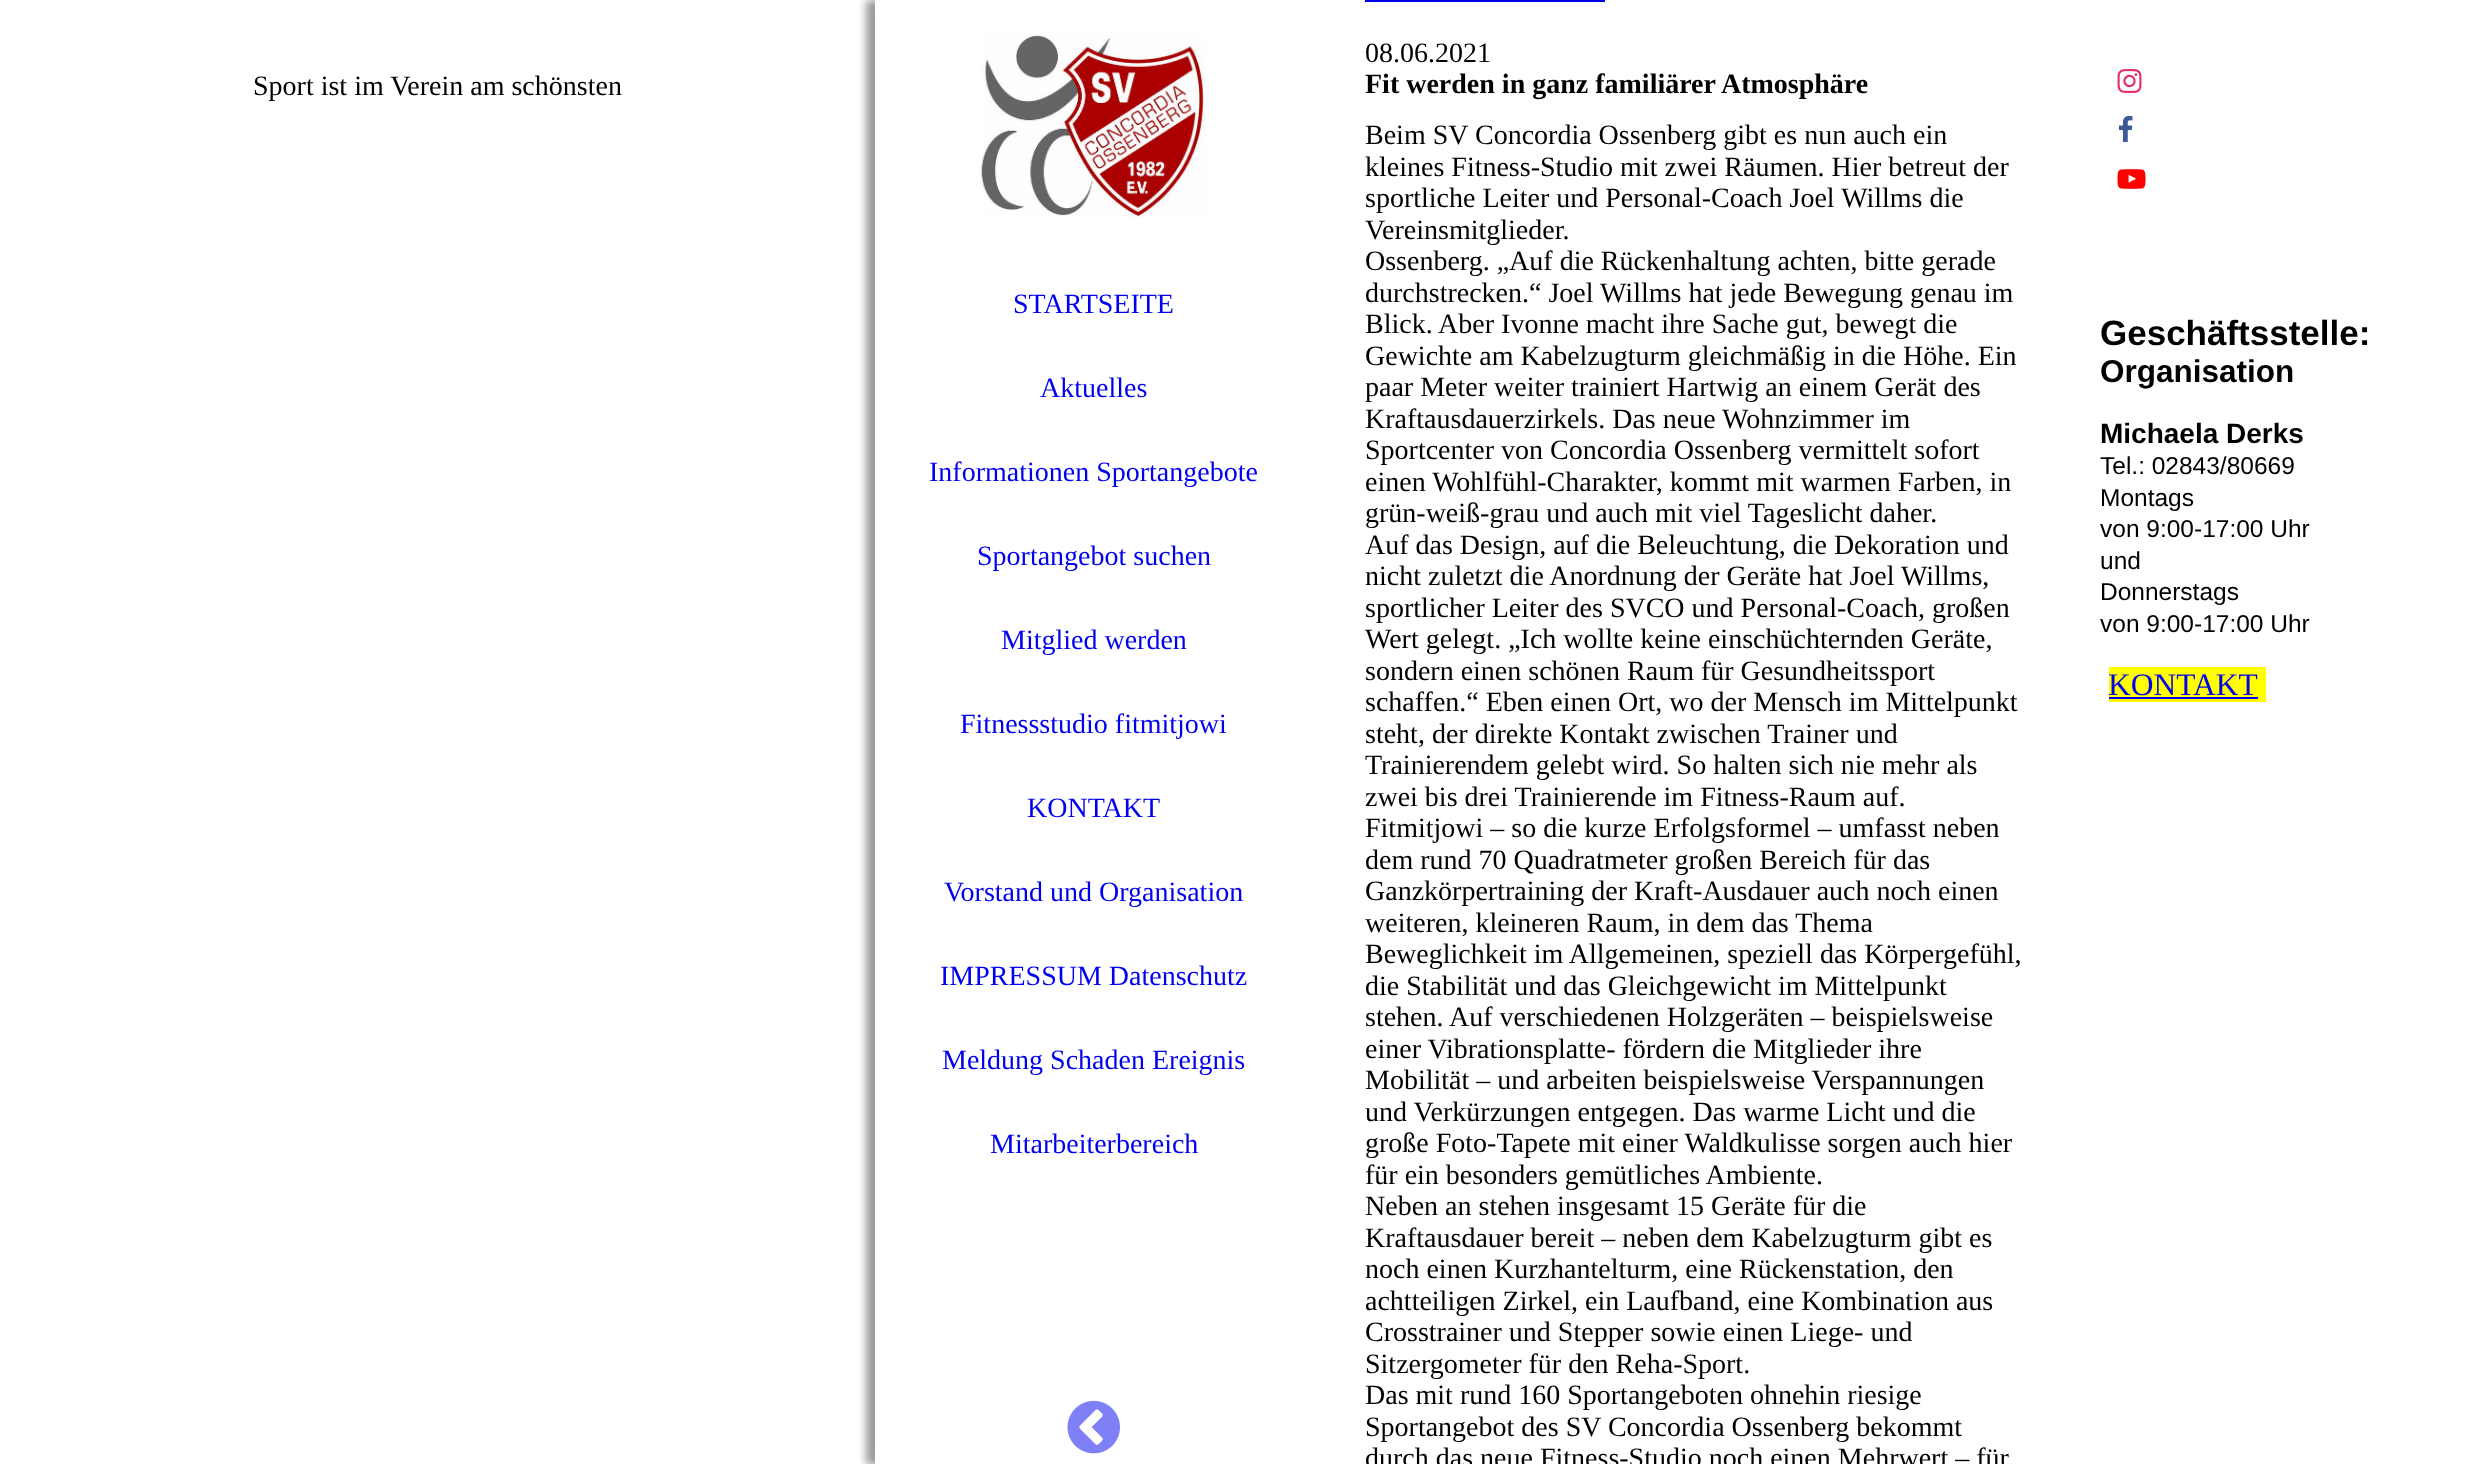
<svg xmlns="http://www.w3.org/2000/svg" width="2487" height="1464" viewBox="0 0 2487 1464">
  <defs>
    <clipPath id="clip1"><rect x="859" y="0" width="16" height="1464"/></clipPath>
    <filter id="blur1" x="-50%" y="-200%" width="200%" height="500%"><feGaussianBlur stdDeviation="4.5"/></filter>
  </defs>
  <rect width="100%" height="100%" fill="#ffffff"/>
  <text x="253" y="95" font-family="Liberation Serif" font-size="28" fill="#000000">Sport ist im Verein am schönsten</text>
  <rect x="1365" y="0" width="240" height="2" fill="#0000ee"/>
  <text x="1365" y="62" font-family="Liberation Serif" font-size="28" fill="#000000">08.06.2021</text>
  <text x="1365" y="93" font-family="Liberation Serif" font-size="28" font-weight="bold" fill="#000000">Fit werden in ganz familiärer Atmosphäre</text>
  <text x="1365" y="144" font-family="Liberation Serif" font-size="28" fill="#000000">Beim SV Concordia Ossenberg gibt es nun auch ein</text>
  <text x="1365" y="176" font-family="Liberation Serif" font-size="28" fill="#000000">kleines Fitness-Studio mit zwei Räumen. Hier betreut der</text>
  <text x="1365" y="207" font-family="Liberation Serif" font-size="28" fill="#000000">sportliche Leiter und Personal-Coach Joel Willms die</text>
  <text x="1365" y="239" font-family="Liberation Serif" font-size="28" fill="#000000">Vereinsmitglieder.</text>
  <text x="1365" y="270" font-family="Liberation Serif" font-size="28" fill="#000000">Ossenberg. „Auf die Rückenhaltung achten, bitte gerade</text>
  <text x="1365" y="302" font-family="Liberation Serif" font-size="28" fill="#000000">durchstrecken.“ Joel Willms hat jede Bewegung genau im</text>
  <text x="1365" y="333" font-family="Liberation Serif" font-size="28" fill="#000000">Blick. Aber Ivonne macht ihre Sache gut, bewegt die</text>
  <text x="1365" y="365" font-family="Liberation Serif" font-size="28" fill="#000000">Gewichte am Kabelzugturm gleichmäßig in die Höhe. Ein</text>
  <text x="1365" y="396" font-family="Liberation Serif" font-size="28" fill="#000000">paar Meter weiter trainiert Hartwig an einem Gerät des</text>
  <text x="1365" y="428" font-family="Liberation Serif" font-size="28" fill="#000000">Kraftausdauerzirkels. Das neue Wohnzimmer im</text>
  <text x="1365" y="459" font-family="Liberation Serif" font-size="28" fill="#000000">Sportcenter von Concordia Ossenberg vermittelt sofort</text>
  <text x="1365" y="491" font-family="Liberation Serif" font-size="28" fill="#000000">einen Wohlfühl-Charakter, kommt mit warmen Farben, in</text>
  <text x="1365" y="522" font-family="Liberation Serif" font-size="28" fill="#000000">grün-weiß-grau und auch mit viel Tageslicht daher.</text>
  <text x="1365" y="554" font-family="Liberation Serif" font-size="28" fill="#000000">Auf das Design, auf die Beleuchtung, die Dekoration und</text>
  <text x="1365" y="585" font-family="Liberation Serif" font-size="28" fill="#000000">nicht zuletzt die Anordnung der Geräte hat Joel Willms,</text>
  <text x="1365" y="617" font-family="Liberation Serif" font-size="28" fill="#000000">sportlicher Leiter des SVCO und Personal-Coach, großen</text>
  <text x="1365" y="648" font-family="Liberation Serif" font-size="28" fill="#000000">Wert gelegt. „Ich wollte keine einschüchternden Geräte,</text>
  <text x="1365" y="680" font-family="Liberation Serif" font-size="28" fill="#000000">sondern einen schönen Raum für Gesundheitssport</text>
  <text x="1365" y="711" font-family="Liberation Serif" font-size="28" fill="#000000">schaffen.“ Eben einen Ort, wo der Mensch im Mittelpunkt</text>
  <text x="1365" y="743" font-family="Liberation Serif" font-size="28" fill="#000000">steht, der direkte Kontakt zwischen Trainer und</text>
  <text x="1365" y="774" font-family="Liberation Serif" font-size="28" fill="#000000">Trainierendem gelebt wird. So halten sich nie mehr als</text>
  <text x="1365" y="806" font-family="Liberation Serif" font-size="28" fill="#000000">zwei bis drei Trainierende im Fitness-Raum auf.</text>
  <text x="1365" y="837" font-family="Liberation Serif" font-size="28" fill="#000000">Fitmitjowi – so die kurze Erfolgsformel – umfasst neben</text>
  <text x="1365" y="869" font-family="Liberation Serif" font-size="28" fill="#000000">dem rund 70 Quadratmeter großen Bereich für das</text>
  <text x="1365" y="900" font-family="Liberation Serif" font-size="28" fill="#000000">Ganzkörpertraining der Kraft-Ausdauer auch noch einen</text>
  <text x="1365" y="932" font-family="Liberation Serif" font-size="28" fill="#000000">weiteren, kleineren Raum, in dem das Thema</text>
  <text x="1365" y="963" font-family="Liberation Serif" font-size="28" fill="#000000">Beweglichkeit im Allgemeinen, speziell das Körpergefühl,</text>
  <text x="1365" y="995" font-family="Liberation Serif" font-size="28" fill="#000000">die Stabilität und das Gleichgewicht im Mittelpunkt</text>
  <text x="1365" y="1026" font-family="Liberation Serif" font-size="28" fill="#000000">stehen. Auf verschiedenen Holzgeräten – beispielsweise</text>
  <text x="1365" y="1058" font-family="Liberation Serif" font-size="28" fill="#000000">einer Vibrationsplatte- fördern die Mitglieder ihre</text>
  <text x="1365" y="1089" font-family="Liberation Serif" font-size="28" fill="#000000">Mobilität – und arbeiten beispielsweise Verspannungen</text>
  <text x="1365" y="1121" font-family="Liberation Serif" font-size="28" fill="#000000">und Verkürzungen entgegen. Das warme Licht und die</text>
  <text x="1365" y="1152" font-family="Liberation Serif" font-size="28" fill="#000000">große Foto-Tapete mit einer Waldkulisse sorgen auch hier</text>
  <text x="1365" y="1184" font-family="Liberation Serif" font-size="28" fill="#000000">für ein besonders gemütliches Ambiente.</text>
  <text x="1365" y="1215" font-family="Liberation Serif" font-size="28" fill="#000000">Neben an stehen insgesamt 15 Geräte für die</text>
  <text x="1365" y="1247" font-family="Liberation Serif" font-size="28" fill="#000000">Kraftausdauer bereit – neben dem Kabelzugturm gibt es</text>
  <text x="1365" y="1278" font-family="Liberation Serif" font-size="28" fill="#000000">noch einen Kurzhantelturm, eine Rückenstation, den</text>
  <text x="1365" y="1310" font-family="Liberation Serif" font-size="28" fill="#000000">achtteiligen Zirkel, ein Laufband, eine Kombination aus</text>
  <text x="1365" y="1341" font-family="Liberation Serif" font-size="28" fill="#000000">Crosstrainer und Stepper sowie einen Liege- und</text>
  <text x="1365" y="1373" font-family="Liberation Serif" font-size="28" fill="#000000">Sitzergometer für den Reha-Sport.</text>
  <text x="1365" y="1404" font-family="Liberation Serif" font-size="28" fill="#000000">Das mit rund 160 Sportangeboten ohnehin riesige</text>
  <text x="1365" y="1436" font-family="Liberation Serif" font-size="28" fill="#000000">Sportangebot des SV Concordia Ossenberg bekommt</text>
  <text x="1365" y="1467" font-family="Liberation Serif" font-size="28" fill="#000000">durch das neue Fitness-Studio noch einen Mehrwert – für</text>
  <image x="2117" y="69" width="25" height="24" href="img1.png"/>
  <image x="2119" y="116" width="14" height="26" href="img2.png"/>
  <image x="2117" y="169" width="29" height="20" href="img3.png"/>
  <text x="2100" y="345" font-family="Liberation Sans" font-size="35" font-weight="bold" fill="#000000">Geschäftsstelle:</text>
  <text x="2100" y="382" font-family="Liberation Sans" font-size="31.5" font-weight="bold" fill="#000000">Organisation</text>
  <text x="2100" y="443" font-family="Liberation Sans" font-size="28" font-weight="bold" fill="#000000">Michaela Derks</text>
  <text x="2100" y="474" font-family="Liberation Sans" font-size="24.5" fill="#000000">Tel.: 02843/80669</text>
  <text x="2100" y="506" font-family="Liberation Sans" font-size="24.5" fill="#000000">Montags</text>
  <text x="2100" y="537" font-family="Liberation Sans" font-size="24.5" fill="#000000">von 9:00-17:00 Uhr</text>
  <text x="2100" y="569" font-family="Liberation Sans" font-size="24.5" fill="#000000">und</text>
  <text x="2100" y="600" font-family="Liberation Sans" font-size="24.5" fill="#000000">Donnerstags</text>
  <text x="2100" y="632" font-family="Liberation Sans" font-size="24.5" fill="#000000">von 9:00-17:00 Uhr</text>
  <rect x="2109" y="667" width="157" height="35" fill="#ffff00"/>
  <text x="2108" y="695" font-family="Liberation Serif" font-size="31.5" fill="#0000ee">KONTAKT</text>
  <rect x="2109" y="697" width="149" height="2" fill="#0000ee"/>
  <g clip-path="url(#clip1)">
    <rect x="866" y="0" width="438" height="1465" fill="#000000" fill-opacity="0.4" filter="url(#blur1)"/>
  </g>
  <image x="981" y="34" width="225" height="184" href="img4.png"/>
  <text x="1013" y="313" font-family="Liberation Serif" font-size="28" fill="#0000ee">STARTSEITE</text>
  <text x="1040" y="397" font-family="Liberation Serif" font-size="28" fill="#0000ee">Aktuelles</text>
  <text x="929" y="481" font-family="Liberation Serif" font-size="28" fill="#0000ee">Informationen Sportangebote</text>
  <text x="977" y="565" font-family="Liberation Serif" font-size="28" fill="#0000ee">Sportangebot suchen</text>
  <text x="1001" y="649" font-family="Liberation Serif" font-size="28" fill="#0000ee">Mitglied werden</text>
  <text x="960" y="733" font-family="Liberation Serif" font-size="28" fill="#0000ee">Fitnessstudio fitmitjowi</text>
  <text x="1027" y="817" font-family="Liberation Serif" font-size="28" fill="#0000ee">KONTAKT</text>
  <text x="944" y="901" font-family="Liberation Serif" font-size="28" fill="#0000ee">Vorstand und Organisation</text>
  <text x="940" y="985" font-family="Liberation Serif" font-size="28" fill="#0000ee">IMPRESSUM Datenschutz</text>
  <text x="942" y="1069" font-family="Liberation Serif" font-size="28" fill="#0000ee">Meldung Schaden Ereignis</text>
  <text x="990" y="1153" font-family="Liberation Serif" font-size="28" fill="#0000ee">Mitarbeiterbereich</text>
  <image x="1067" y="1400" width="53" height="54" href="img5.png"/>
</svg>
